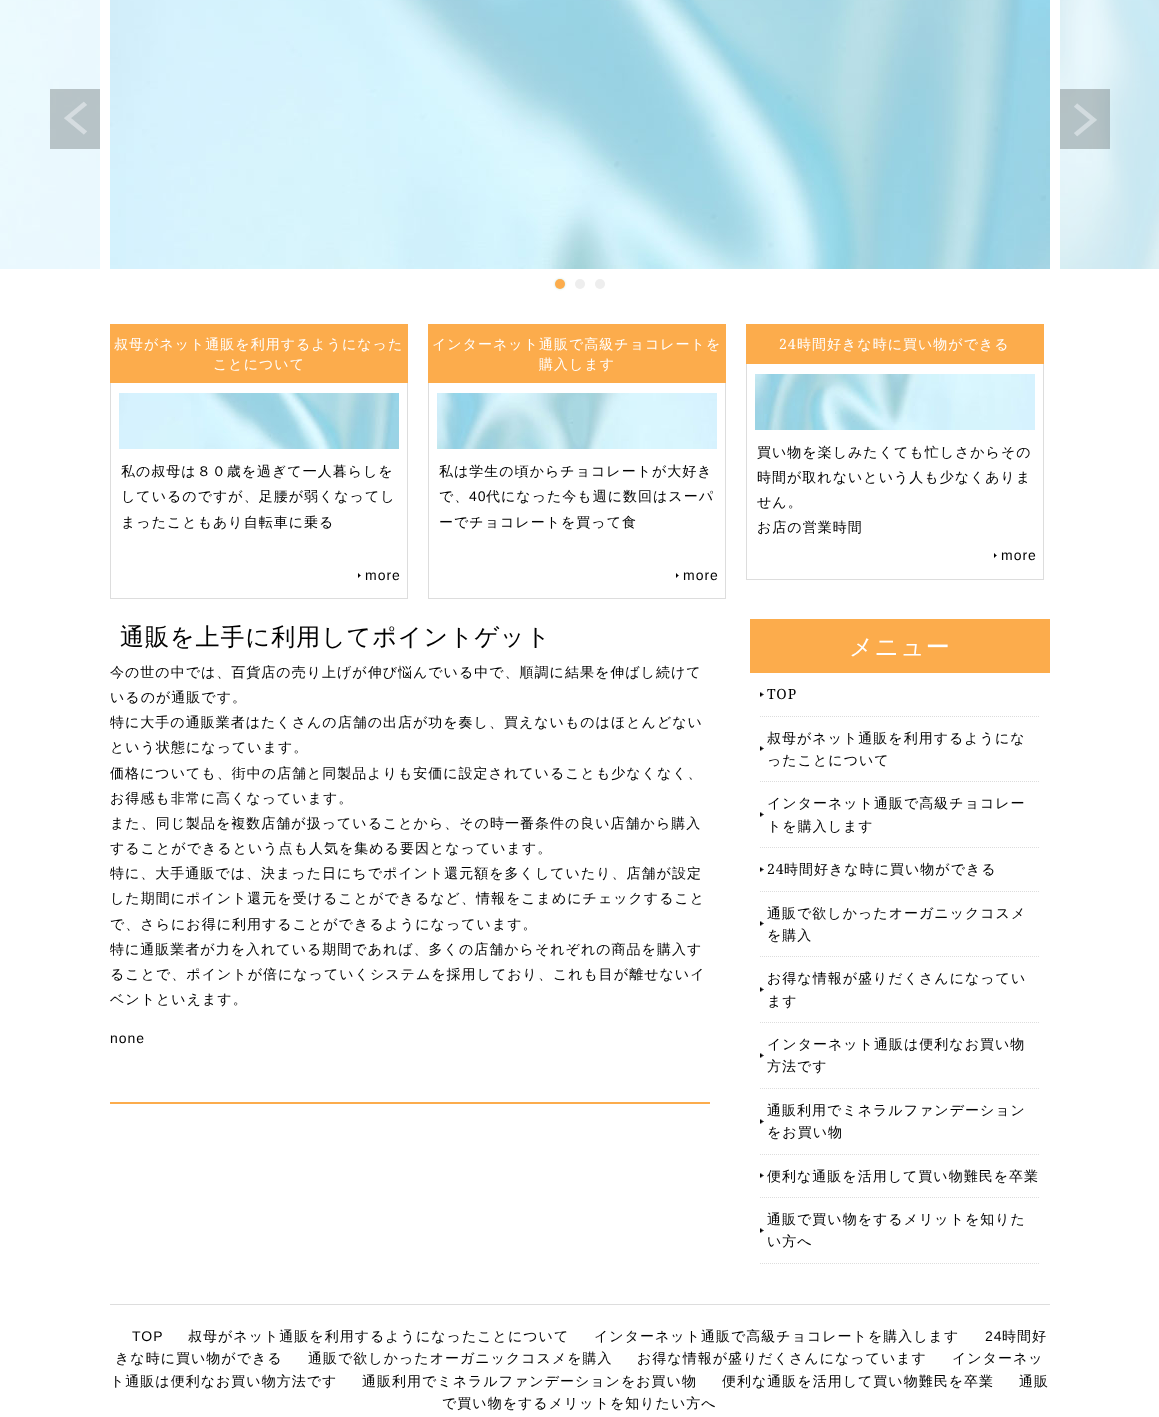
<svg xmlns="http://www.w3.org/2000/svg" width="1159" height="1417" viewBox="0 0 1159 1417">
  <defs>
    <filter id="blur1" x="-50%" y="-200%" width="200%" height="500%"><feGaussianBlur stdDeviation="1"/></filter>
    <clipPath id="clip1"><rect x="110" y="294" width="940" height="980"/></clipPath>
  </defs>
  <rect width="100%" height="100%" fill="#ffffff"/>
  <image x="0" y="0" width="100" height="269" href="img1.png"/>
  <image x="110" y="0" width="940" height="269" href="img2.png"/>
  <image x="1060" y="0" width="99" height="269" href="img3.png"/>
  <image x="50" y="89" width="50" height="60" href="img4.png"/>
  <image x="1060" y="89" width="50" height="60" href="img5.png"/>
  <rect x="555" y="279" width="10" height="10" rx="5" fill="#85d1c6" fill-opacity="0.5" filter="url(#blur1)"/>
  <circle cx="560" cy="284" r="5" fill="#fcac4c"/>
  <circle cx="580" cy="284" r="5" fill="#eeeeee"/>
  <circle cx="600" cy="284" r="5" fill="#eeeeee"/>
  <rect x="110" y="324" width="298" height="59" fill="#fcac4c"/>
  <text x="114" y="349" font-family="WenQuanYi Zen Hei" font-size="14" font-weight="500" letter-spacing="1" fill="#ffffff">叔母がネット通販を利用するようになった</text>
  <text x="213" y="369" font-family="WenQuanYi Zen Hei" font-size="14" font-weight="500" letter-spacing="1" fill="#ffffff">ことについて</text>
  <rect x="407" y="383" width="1" height="216" fill="#dddddd"/>
  <rect x="110" y="598" width="298" height="1" fill="#dddddd"/>
  <rect x="110" y="383" width="1" height="216" fill="#dddddd"/>
  <image x="119" y="393" width="280" height="56" href="img6.png"/>
  <text x="121" y="476" font-family="WenQuanYi Zen Hei" font-size="14" font-weight="500" letter-spacing="1" fill="#000000">私の叔母は８０歳を過ぎて一人暮らしを</text>
  <text x="121" y="501" font-family="WenQuanYi Zen Hei" font-size="14" font-weight="500" letter-spacing="1" fill="#000000">しているのですが、足腰が弱くなってし</text>
  <text x="121" y="527" font-family="WenQuanYi Zen Hei" font-size="14" font-weight="500" letter-spacing="1" fill="#000000">まったこともあり自転車に乗る</text>
  <image x="358" y="573" width="3" height="5" href="img7.png"/>
  <text x="365" y="580" font-family="Liberation Sans" font-size="14" letter-spacing="1" fill="#000000">more</text>
  <rect x="428" y="324" width="298" height="59" fill="#fcac4c"/>
  <text x="432" y="349" font-family="WenQuanYi Zen Hei" font-size="14" font-weight="500" letter-spacing="1" fill="#ffffff">インターネット通販で高級チョコレートを</text>
  <text x="539" y="369" font-family="WenQuanYi Zen Hei" font-size="14" font-weight="500" letter-spacing="1" fill="#ffffff">購入します</text>
  <rect x="725" y="383" width="1" height="216" fill="#dddddd"/>
  <rect x="428" y="598" width="298" height="1" fill="#dddddd"/>
  <rect x="428" y="383" width="1" height="216" fill="#dddddd"/>
  <image x="437" y="393" width="280" height="56" href="img8.png"/>
  <text x="439" y="476" font-family="WenQuanYi Zen Hei" font-size="14" font-weight="500" letter-spacing="1" fill="#000000">私は学生の頃からチョコレートが大好き</text>
  <text x="439" y="501" font-family="WenQuanYi Zen Hei" font-size="14" font-weight="500" letter-spacing="1" fill="#000000">で、</text>
  <text x="469" y="501" font-family="Liberation Sans" font-size="14" letter-spacing="1" fill="#000000">40</text>
  <text x="486" y="501" font-family="WenQuanYi Zen Hei" font-size="14" font-weight="500" letter-spacing="1" fill="#000000">代になった今も週に数回はスーパ</text>
  <text x="439" y="527" font-family="WenQuanYi Zen Hei" font-size="14" font-weight="500" letter-spacing="1" fill="#000000">ーでチョコレートを買って食</text>
  <image x="676" y="573" width="3" height="5" href="img7.png"/>
  <text x="683" y="580" font-family="Liberation Sans" font-size="14" letter-spacing="1" fill="#000000">more</text>
  <rect x="746" y="324" width="298" height="40" fill="#fcac4c"/>
  <text x="779" y="349" font-family="Noto Serif" font-size="14" letter-spacing="1" fill="#ffffff">24</text>
  <text x="797" y="349" font-family="WenQuanYi Zen Hei" font-size="14" font-weight="500" letter-spacing="1" fill="#ffffff">時間好きな時に買い物ができる</text>
  <rect x="1043" y="364" width="1" height="216" fill="#dddddd"/>
  <rect x="746" y="579" width="298" height="1" fill="#dddddd"/>
  <rect x="746" y="364" width="1" height="216" fill="#dddddd"/>
  <image x="755" y="374" width="280" height="56" href="img9.png"/>
  <text x="757" y="457" font-family="WenQuanYi Zen Hei" font-size="14" font-weight="500" letter-spacing="1" fill="#000000">買い物を楽しみたくても忙しさからその</text>
  <text x="757" y="482" font-family="WenQuanYi Zen Hei" font-size="14" font-weight="500" letter-spacing="1" fill="#000000">時間が取れないという人も少なくありま</text>
  <text x="757" y="507" font-family="WenQuanYi Zen Hei" font-size="14" font-weight="500" letter-spacing="1" fill="#000000">せん。</text>
  <text x="757" y="532" font-family="WenQuanYi Zen Hei" font-size="14" font-weight="500" letter-spacing="1" fill="#000000">お店の営業時間</text>
  <image x="994" y="553" width="3" height="5" href="img7.png"/>
  <text x="1001" y="560" font-family="Liberation Sans" font-size="14" letter-spacing="1" fill="#000000">more</text>
  <text x="120" y="645" font-family="WenQuanYi Zen Hei" font-size="24" font-weight="500" letter-spacing="1" fill="#000000">通販を上手に利用してポイントゲット</text>
  <text x="110" y="677" font-family="WenQuanYi Zen Hei" font-size="14" font-weight="500" letter-spacing="1" fill="#000000">今の世の中では、百貨店の売り上げが伸び悩んでいる中で、順調に結果を伸ばし続けて</text>
  <text x="110" y="702" font-family="WenQuanYi Zen Hei" font-size="14" font-weight="500" letter-spacing="1" fill="#000000">いるのが通販です。</text>
  <g clip-path="url(#clip1)">
    <text x="110" y="727" font-family="WenQuanYi Zen Hei" font-size="14" font-weight="500" letter-spacing="1" fill="#000000">特に大手の通販業者はたくさんの店舗の出店が功を奏し、買えないものはほとんどない</text>
  </g>
  <text x="110" y="752" font-family="WenQuanYi Zen Hei" font-size="14" font-weight="500" letter-spacing="1" fill="#000000">という状態になっています。</text>
  <text x="110" y="778" font-family="WenQuanYi Zen Hei" font-size="14" font-weight="500" letter-spacing="1" fill="#000000">価格についても、街中の店舗と同製品よりも安価に設定されていることも少なくなく、</text>
  <text x="110" y="803" font-family="WenQuanYi Zen Hei" font-size="14" font-weight="500" letter-spacing="1" fill="#000000">お得感も非常に高くなっています。</text>
  <text x="110" y="828" font-family="WenQuanYi Zen Hei" font-size="14" font-weight="500" letter-spacing="1" fill="#000000">また、同じ製品を複数店舗が扱っていることから、その時一番条件の良い店舗から購入</text>
  <text x="110" y="853" font-family="WenQuanYi Zen Hei" font-size="14" font-weight="500" letter-spacing="1" fill="#000000">することができるという点も人気を集める要因となっています。</text>
  <g clip-path="url(#clip1)">
    <text x="110" y="878" font-family="WenQuanYi Zen Hei" font-size="14" font-weight="500" letter-spacing="1" fill="#000000">特に、大手通販では、決まった日にちでポイント還元額を多くしていたり、店舗が設定</text>
  </g>
  <text x="110" y="903" font-family="WenQuanYi Zen Hei" font-size="14" font-weight="500" letter-spacing="1" fill="#000000">した期間にポイント還元を受けることができるなど、情報をこまめにチェックすること</text>
  <text x="110" y="929" font-family="WenQuanYi Zen Hei" font-size="14" font-weight="500" letter-spacing="1" fill="#000000">で、さらにお得に利用することができるようになっています。</text>
  <g clip-path="url(#clip1)">
    <text x="110" y="954" font-family="WenQuanYi Zen Hei" font-size="14" font-weight="500" letter-spacing="1" fill="#000000">特に通販業者が力を入れている期間であれば、多くの店舗からそれぞれの商品を購入す</text>
  </g>
  <text x="110" y="979" font-family="WenQuanYi Zen Hei" font-size="14" font-weight="500" letter-spacing="1" fill="#000000">ることで、ポイントが倍になっていくシステムを採用しており、これも目が離せないイ</text>
  <text x="110" y="1004" font-family="WenQuanYi Zen Hei" font-size="14" font-weight="500" letter-spacing="1" fill="#000000">ベントといえます。</text>
  <text x="110" y="1043" font-family="Liberation Sans" font-size="14" letter-spacing="1" fill="#000000">none</text>
  <rect x="110" y="1102" width="600" height="2" fill="#fcac4c"/>
  <rect x="750" y="619" width="300" height="54" fill="#fcac4c"/>
  <text x="849" y="655" font-family="WenQuanYi Zen Hei" font-size="24" font-weight="500" letter-spacing="1" fill="#ffffff">メニュー</text>
  <image x="760" y="692" width="4" height="5" href="img10.png"/>
  <path d="M760 716.5H1040" fill="none" stroke="#dddddd" stroke-dasharray="1 1"/>
  <text x="767" y="699" font-family="Noto Serif" font-size="14" letter-spacing="1" fill="#000000">TOP</text>
  <image x="760" y="746" width="4" height="5" href="img10.png"/>
  <path d="M760 781.5H1040" fill="none" stroke="#dddddd" stroke-dasharray="1 1"/>
  <text x="767" y="743" font-family="WenQuanYi Zen Hei" font-size="14" font-weight="500" letter-spacing="1" fill="#000000">叔母がネット通販を利用するようにな</text>
  <text x="767" y="765" font-family="WenQuanYi Zen Hei" font-size="14" font-weight="500" letter-spacing="1" fill="#000000">ったことについて</text>
  <image x="760" y="812" width="4" height="5" href="img10.png"/>
  <path d="M760 847.5H1040" fill="none" stroke="#dddddd" stroke-dasharray="1 1"/>
  <text x="767" y="808" font-family="WenQuanYi Zen Hei" font-size="14" font-weight="500" letter-spacing="1" fill="#000000">インターネット通販で高級チョコレー</text>
  <text x="767" y="831" font-family="WenQuanYi Zen Hei" font-size="14" font-weight="500" letter-spacing="1" fill="#000000">トを購入します</text>
  <image x="760" y="867" width="4" height="5" href="img10.png"/>
  <path d="M760 891.5H1040" fill="none" stroke="#dddddd" stroke-dasharray="1 1"/>
  <text x="767" y="874" font-family="Noto Serif" font-size="14" letter-spacing="1" fill="#000000">24</text>
  <text x="784" y="874" font-family="WenQuanYi Zen Hei" font-size="14" font-weight="500" letter-spacing="1" fill="#000000">時間好きな時に買い物ができる</text>
  <image x="760" y="921" width="4" height="5" href="img10.png"/>
  <path d="M760 956.5H1040" fill="none" stroke="#dddddd" stroke-dasharray="1 1"/>
  <text x="767" y="918" font-family="WenQuanYi Zen Hei" font-size="14" font-weight="500" letter-spacing="1" fill="#000000">通販で欲しかったオーガニックコスメ</text>
  <text x="767" y="940" font-family="WenQuanYi Zen Hei" font-size="14" font-weight="500" letter-spacing="1" fill="#000000">を購入</text>
  <image x="760" y="987" width="4" height="5" href="img10.png"/>
  <path d="M760 1022.5H1040" fill="none" stroke="#dddddd" stroke-dasharray="1 1"/>
  <text x="767" y="983" font-family="WenQuanYi Zen Hei" font-size="14" font-weight="500" letter-spacing="1" fill="#000000">お得な情報が盛りだくさんになってい</text>
  <text x="767" y="1006" font-family="WenQuanYi Zen Hei" font-size="14" font-weight="500" letter-spacing="1" fill="#000000">ます</text>
  <image x="760" y="1053" width="4" height="5" href="img10.png"/>
  <path d="M760 1088.5H1040" fill="none" stroke="#dddddd" stroke-dasharray="1 1"/>
  <text x="767" y="1049" font-family="WenQuanYi Zen Hei" font-size="14" font-weight="500" letter-spacing="1" fill="#000000">インターネット通販は便利なお買い物</text>
  <text x="767" y="1071" font-family="WenQuanYi Zen Hei" font-size="14" font-weight="500" letter-spacing="1" fill="#000000">方法です</text>
  <image x="760" y="1119" width="4" height="5" href="img10.png"/>
  <path d="M760 1154.5H1040" fill="none" stroke="#dddddd" stroke-dasharray="1 1"/>
  <text x="767" y="1115" font-family="WenQuanYi Zen Hei" font-size="14" font-weight="500" letter-spacing="1" fill="#000000">通販利用でミネラルファンデーション</text>
  <text x="767" y="1137" font-family="WenQuanYi Zen Hei" font-size="14" font-weight="500" letter-spacing="1" fill="#000000">をお買い物</text>
  <image x="760" y="1173" width="4" height="5" href="img10.png"/>
  <path d="M760 1197.5H1040" fill="none" stroke="#dddddd" stroke-dasharray="1 1"/>
  <text x="767" y="1181" font-family="WenQuanYi Zen Hei" font-size="14" font-weight="500" letter-spacing="1" fill="#000000">便利な通販を活用して買い物難民を卒業</text>
  <image x="760" y="1228" width="4" height="5" href="img10.png"/>
  <path d="M760 1263.5H1040" fill="none" stroke="#dddddd" stroke-dasharray="1 1"/>
  <text x="767" y="1224" font-family="WenQuanYi Zen Hei" font-size="14" font-weight="500" letter-spacing="1" fill="#000000">通販で買い物をするメリットを知りた</text>
  <text x="767" y="1246" font-family="WenQuanYi Zen Hei" font-size="14" font-weight="500" letter-spacing="1" fill="#000000">い方へ</text>
  <rect x="110" y="1304" width="940" height="1" fill="#dddddd"/>
  <text x="132" y="1341" font-family="Liberation Sans" font-size="14" letter-spacing="1" fill="#000000">TOP</text>
  <text x="188" y="1341" font-family="WenQuanYi Zen Hei" font-size="14" font-weight="500" letter-spacing="1" fill="#000000">叔母がネット通販を利用するようになったことについて</text>
  <text x="594" y="1341" font-family="WenQuanYi Zen Hei" font-size="14" font-weight="500" letter-spacing="1" fill="#000000">インターネット通販で高級チョコレートを購入します</text>
  <text x="985" y="1341" font-family="Liberation Sans" font-size="14" letter-spacing="1" fill="#000000">24</text>
  <text x="1002" y="1341" font-family="WenQuanYi Zen Hei" font-size="14" font-weight="500" letter-spacing="1" fill="#000000">時間好</text>
  <text x="115" y="1363" font-family="WenQuanYi Zen Hei" font-size="14" font-weight="500" letter-spacing="1" fill="#000000">きな時に買い物ができる</text>
  <text x="308" y="1363" font-family="WenQuanYi Zen Hei" font-size="14" font-weight="500" letter-spacing="1" fill="#000000">通販で欲しかったオーガニックコスメを購入</text>
  <text x="637" y="1363" font-family="WenQuanYi Zen Hei" font-size="14" font-weight="500" letter-spacing="1" fill="#000000">お得な情報が盛りだくさんになっています</text>
  <text x="952" y="1363" font-family="WenQuanYi Zen Hei" font-size="14" font-weight="500" letter-spacing="1" fill="#000000">インターネッ</text>
  <text x="110" y="1386" font-family="WenQuanYi Zen Hei" font-size="14" font-weight="500" letter-spacing="1" fill="#000000">ト通販は便利なお買い物方法です</text>
  <text x="362" y="1386" font-family="WenQuanYi Zen Hei" font-size="14" font-weight="500" letter-spacing="1" fill="#000000">通販利用でミネラルファンデーションをお買い物</text>
  <text x="722" y="1386" font-family="WenQuanYi Zen Hei" font-size="14" font-weight="500" letter-spacing="1" fill="#000000">便利な通販を活用して買い物難民を卒業</text>
  <text x="1019" y="1386" font-family="WenQuanYi Zen Hei" font-size="14" font-weight="500" letter-spacing="1" fill="#000000">通販</text>
  <text x="442" y="1408" font-family="WenQuanYi Zen Hei" font-size="14" font-weight="500" letter-spacing="1" fill="#000000">で買い物をするメリットを知りたい方へ</text>
</svg>
